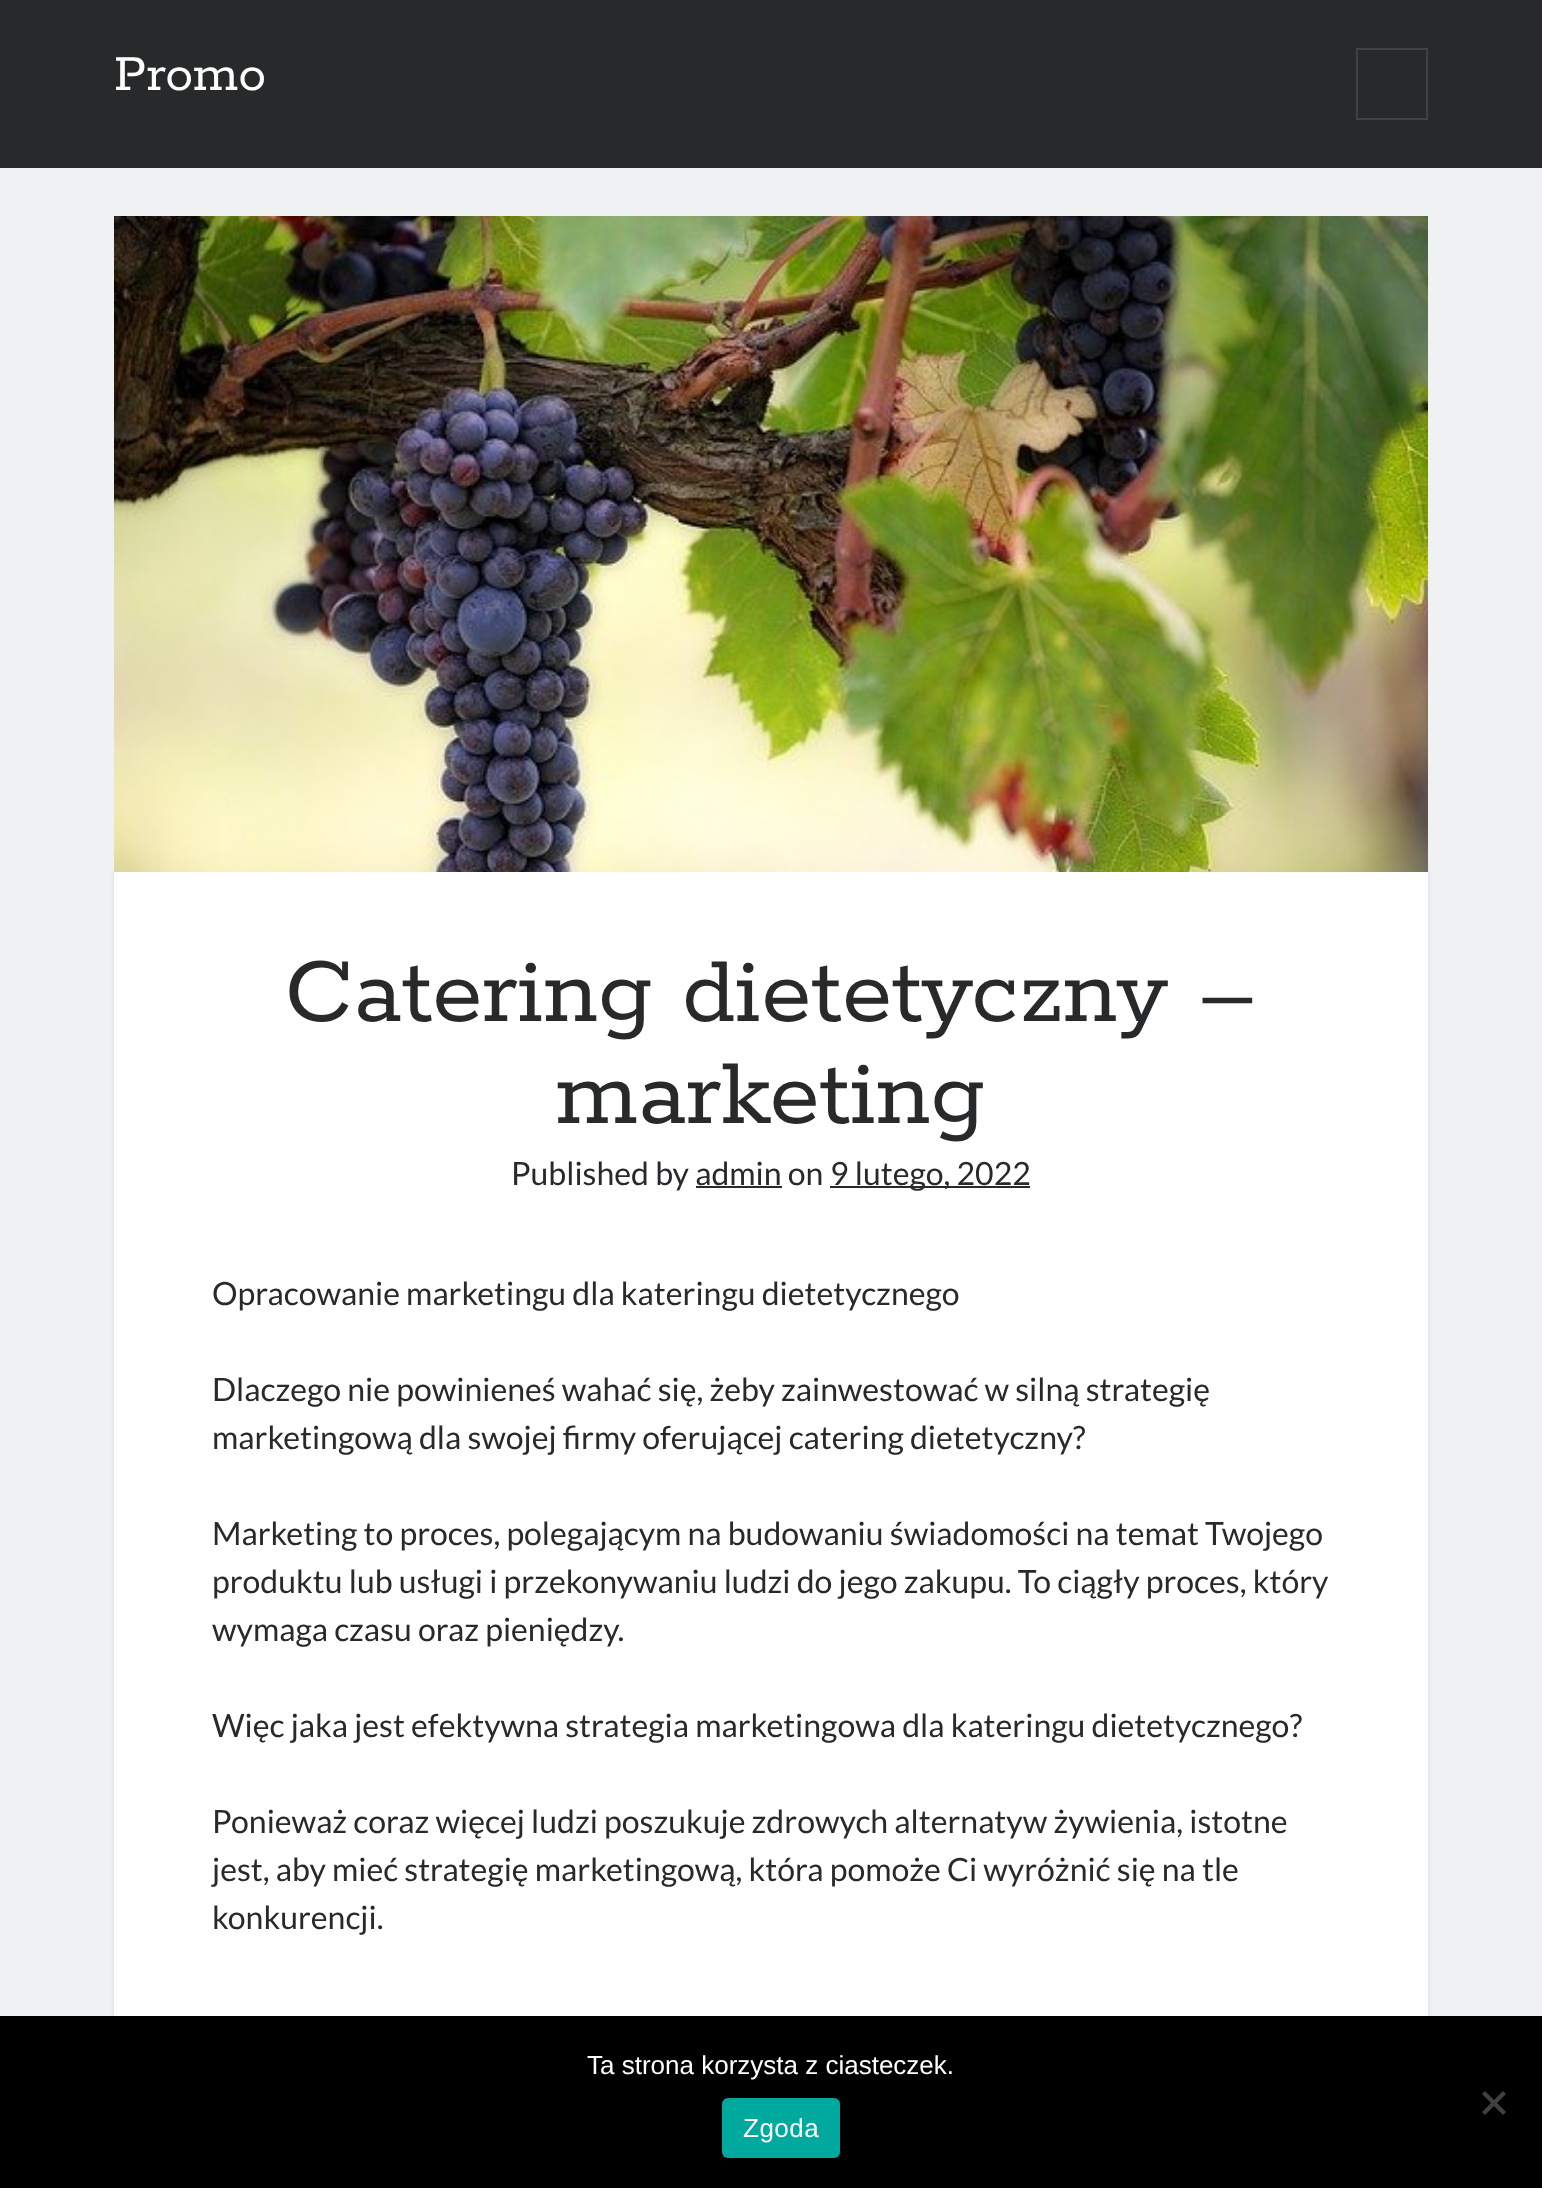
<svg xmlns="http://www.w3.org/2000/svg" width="1542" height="2188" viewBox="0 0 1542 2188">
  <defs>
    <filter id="blur1" x="-50%" y="-200%" width="200%" height="500%"><feGaussianBlur stdDeviation="2"/></filter>
  </defs>
  <rect width="100%" height="100%" fill="#27292b"/>
  <text x="114" y="90" font-family="Rokkitt" font-size="56" fill="#ffffff">Promo</text>
  <rect x="1357" y="49" width="70" height="70" fill="none" stroke="#3e4145" stroke-width="2"/>
  <rect x="0" y="168" width="1542" height="1848" fill="#f0f1f2"/>
  <rect x="114" y="872" width="1314" height="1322" fill="#272b2f" fill-opacity="0.1" filter="url(#blur1)"/>
  <image x="114" y="216" width="1314" height="656" href="img1.png"/>
  <rect x="114" y="872" width="1314" height="1144" fill="#ffffff"/>
  <text x="285" y="1021" font-family="Rokkitt" font-size="102" fill="#27292b">Catering dietetyczny –</text>
  <text x="556" y="1123" font-family="Rokkitt" font-size="102" fill="#27292b">marketing</text>
  <text x="511" y="1185" font-family="Lato" font-size="32" fill="#27292b">Published by admin on</text>
  <rect x="696" y="1186" width="86" height="2" fill="#27292b"/>
  <rect x="830" y="1186" width="200" height="2" fill="#27292b"/>
  <text x="830" y="1185" font-family="Lato" font-size="32" fill="#27292b">9 lutego, 2022</text>
  <text x="212" y="1305" font-family="Lato" font-size="32" fill="#27292b">Opracowanie marketingu dla kateringu dietetycznego</text>
  <text x="212" y="1401" font-family="Lato" font-size="32" fill="#27292b">Dlaczego nie powinieneś wahać się, żeby zainwestować w silną strategię</text>
  <text x="212" y="1449" font-family="Lato" font-size="32" fill="#27292b">marketingową dla swojej firmy oferującej catering dietetyczny?</text>
  <text x="212" y="1545" font-family="Lato" font-size="32" fill="#27292b">Marketing to proces, polegającym na budowaniu świadomości na temat Twojego</text>
  <text x="212" y="1593" font-family="Lato" font-size="32" fill="#27292b">produktu lub usługi i przekonywaniu ludzi do jego zakupu. To ciągły proces, który</text>
  <text x="212" y="1641" font-family="Lato" font-size="32" fill="#27292b">wymaga czasu oraz pieniędzy.</text>
  <text x="212" y="1737" font-family="Lato" font-size="32" fill="#27292b">Więc jaka jest efektywna strategia marketingowa dla kateringu dietetycznego?</text>
  <text x="212" y="1833" font-family="Lato" font-size="32" fill="#27292b">Ponieważ coraz więcej ludzi poszukuje zdrowych alternatyw żywienia, istotne</text>
  <text x="212" y="1881" font-family="Lato" font-size="32" fill="#27292b">jest, aby mieć strategię marketingową, która pomoże Ci wyróżnić się na tle</text>
  <text x="212" y="1929" font-family="Lato" font-size="32" fill="#27292b">konkurencji.</text>
  <rect x="0" y="2016" width="1542" height="172" fill="#000000"/>
  <text x="587" y="2074" font-family="Liberation Sans" font-size="26" fill="#ffffff">Ta strona korzysta z ciasteczek.</text>
  <path d="M1503 2091L1506 2094L1485 2115L1482 2112Z" fill="#404040"/>
  <path d="M1482 2094L1485 2091L1506 2112L1503 2115Z" fill="#404040"/>
  <rect x="722" y="2098" width="118" height="60" rx="6" fill="#00a99d"/>
  <text x="743" y="2137" font-family="Liberation Sans" font-size="26" letter-spacing="0.5" fill="#ffffff">Zgoda</text>
</svg>
